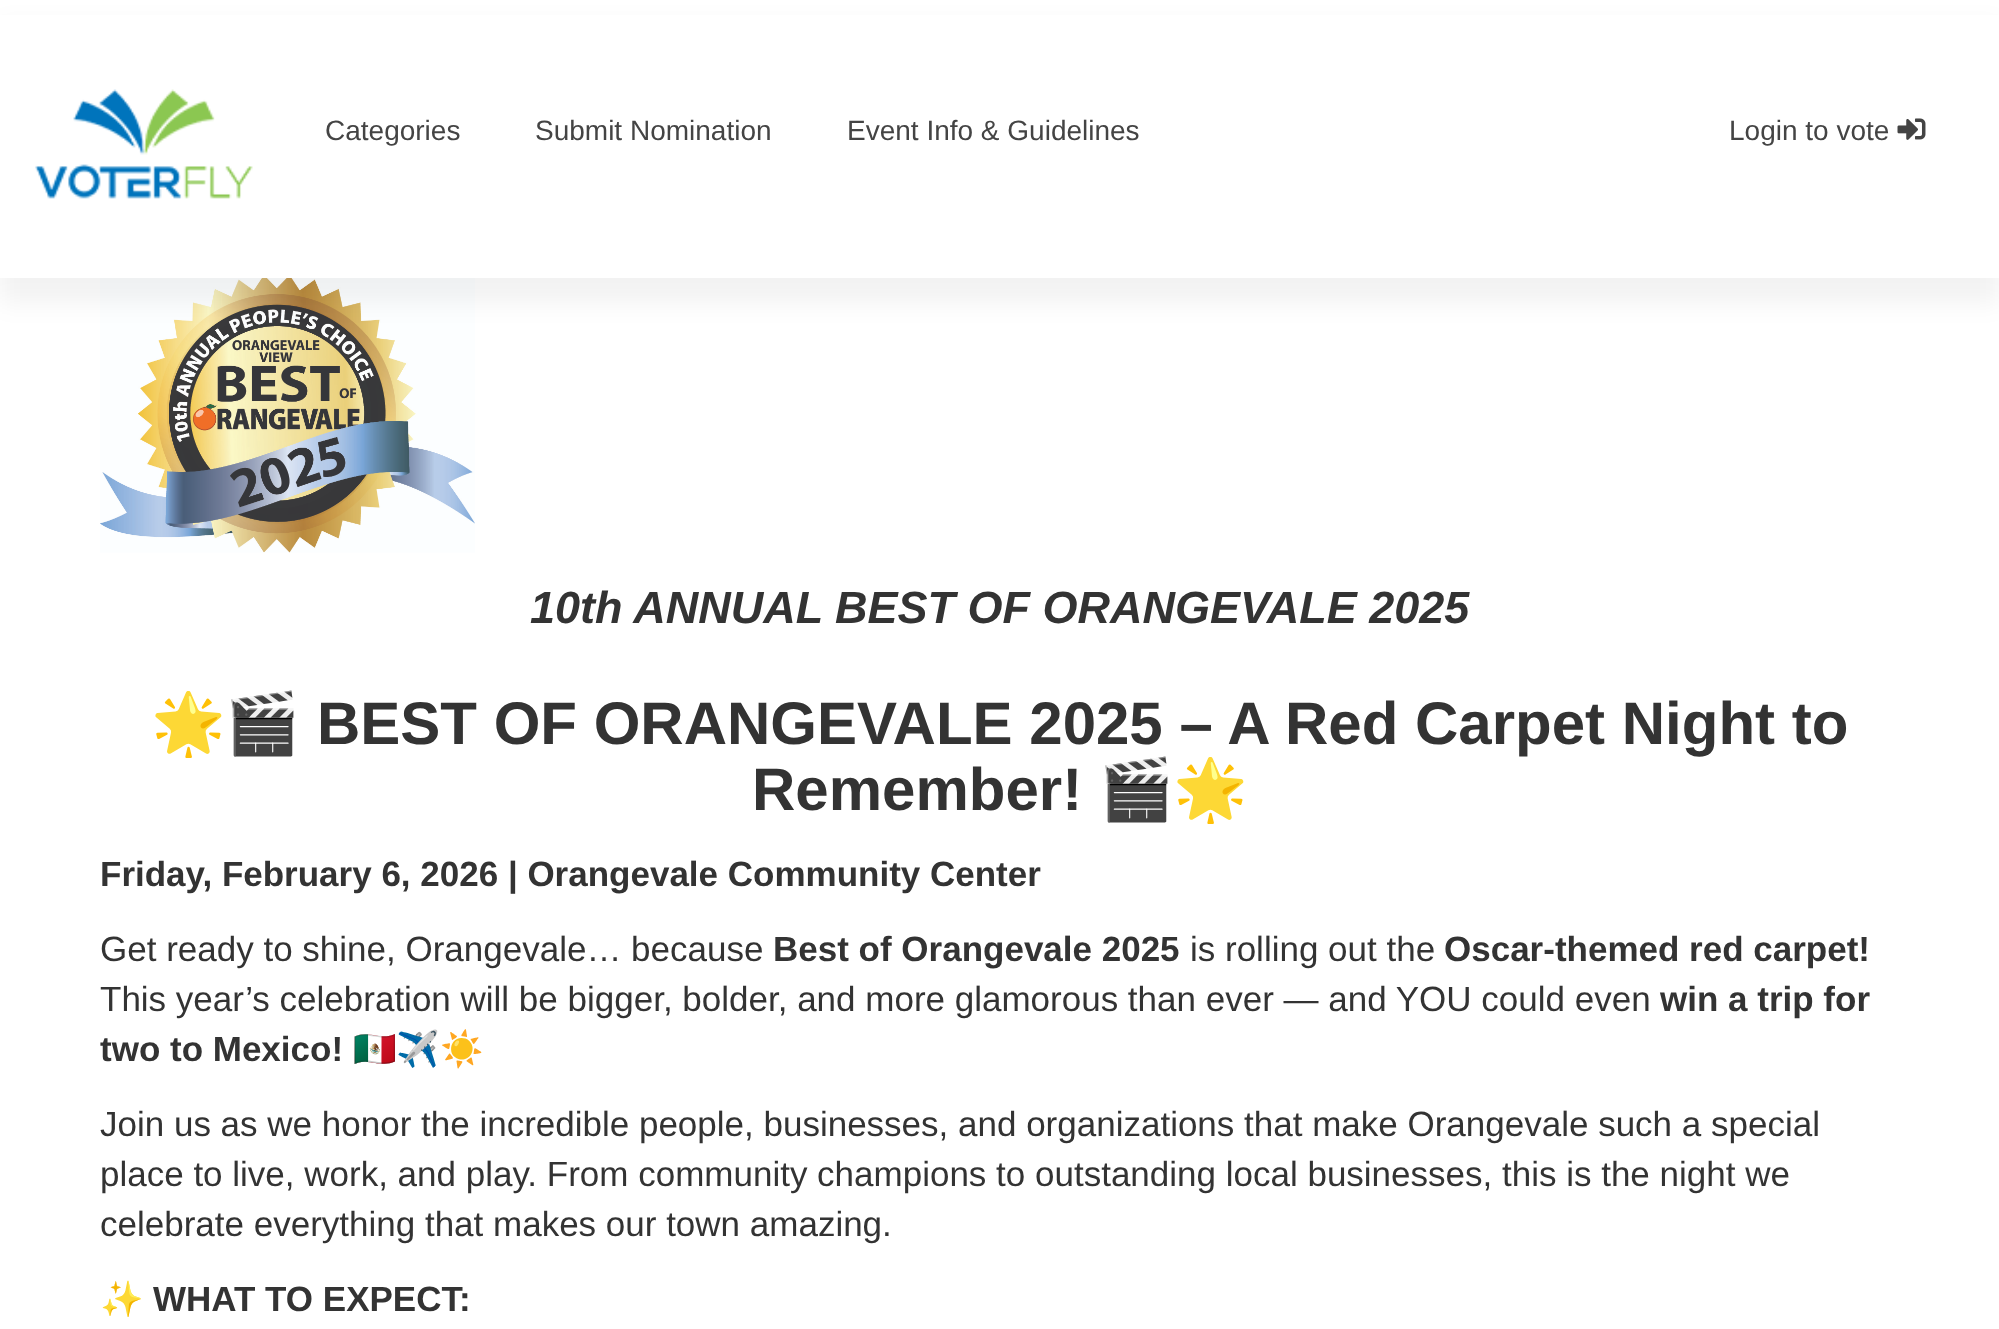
<svg xmlns="http://www.w3.org/2000/svg" width="1999" height="1329" viewBox="0 0 1999 1329">
  <defs>
    <filter id="blur1" x="-50%" y="-200%" width="200%" height="500%"><feGaussianBlur stdDeviation="12.5"/></filter>
  </defs>
  <rect width="100%" height="100%" fill="#ffffff"/>
  <image x="100" y="278" width="375" height="275" href="img3.png"/>
  <rect x="0" y="25" width="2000" height="278" fill="#000000" fill-opacity="0.05" filter="url(#blur1)"/>
  <rect x="0" y="15" width="1999" height="263" fill="#ffffff"/>
  <image x="35" y="89" width="218" height="110" href="img1.png"/>
  <text x="325" y="140" font-family="Liberation Sans" font-size="28" fill="#444444">Categories</text>
  <text x="535" y="140" font-family="Liberation Sans" font-size="28" fill="#444444">Submit Nomination</text>
  <text x="847" y="140" font-family="Liberation Sans" font-size="28" fill="#444444">Event Info &amp; Guidelines</text>
  <text x="1729" y="140" font-family="Liberation Sans" font-size="28" fill="#444444">Login to vote</text>
  <image x="1897" y="118" width="29" height="22" href="img2.png"/>
  <text x="530" y="623" font-family="Liberation Sans" font-size="45" font-weight="bold" font-style="italic" fill="#333333">10th ANNUAL BEST OF ORANGEVALE 2025</text>
  <text x="151" y="744" font-family="Noto Color Emoji" font-size="60" font-weight="bold" fill="#333333">🌟🎬</text>
  <text x="317" y="744" font-family="Liberation Sans" font-size="60" font-weight="bold" fill="#333333">BEST OF ORANGEVALE 2025 – A Red Carpet Night to</text>
  <text x="752" y="810" font-family="Liberation Sans" font-size="60" font-weight="bold" fill="#333333">Remember!</text>
  <text x="1099" y="810" font-family="Noto Color Emoji" font-size="60" font-weight="bold" fill="#333333">🎬🌟</text>
  <text x="100" y="886" font-family="Liberation Sans" font-size="35" font-weight="bold" fill="#333333">Friday, February 6, 2026 | Orangevale Community Center</text>
  <text x="100" y="961" font-family="Liberation Sans" font-size="35" fill="#333333">Get ready to shine, Orangevale… because</text>
  <text x="773" y="961" font-family="Liberation Sans" font-size="35" font-weight="bold" fill="#333333">Best of Orangevale 2025</text>
  <text x="1190" y="961" font-family="Liberation Sans" font-size="35" fill="#333333">is rolling out the</text>
  <text x="1444" y="961" font-family="Liberation Sans" font-size="35" font-weight="bold" fill="#333333">Oscar-themed red carpet!</text>
  <text x="100" y="1011" font-family="Liberation Sans" font-size="35" fill="#333333">This year’s celebration will be bigger, bolder, and more glamorous than ever — and YOU could even</text>
  <text x="1660" y="1011" font-family="Liberation Sans" font-size="35" font-weight="bold" fill="#333333">win a trip for</text>
  <text x="100" y="1061" font-family="Liberation Sans" font-size="35" font-weight="bold" fill="#333333">two to Mexico!</text>
  <text x="353" y="1061" font-family="Noto Color Emoji" font-size="35" fill="#333333">🇲🇽✈️☀️</text>
  <text x="100" y="1136" font-family="Liberation Sans" font-size="35" fill="#333333">Join us as we honor the incredible people, businesses, and organizations that make Orangevale such a special</text>
  <text x="100" y="1186" font-family="Liberation Sans" font-size="35" fill="#333333">place to live, work, and play. From community champions to outstanding local businesses, this is the night we</text>
  <text x="100" y="1236" font-family="Liberation Sans" font-size="35" fill="#333333">celebrate everything that makes our town amazing.</text>
  <text x="100" y="1311" font-family="Noto Color Emoji" font-size="35" fill="#333333">✨</text>
  <text x="153" y="1311" font-family="Liberation Sans" font-size="35" font-weight="bold" fill="#333333">WHAT TO EXPECT:</text>
</svg>
